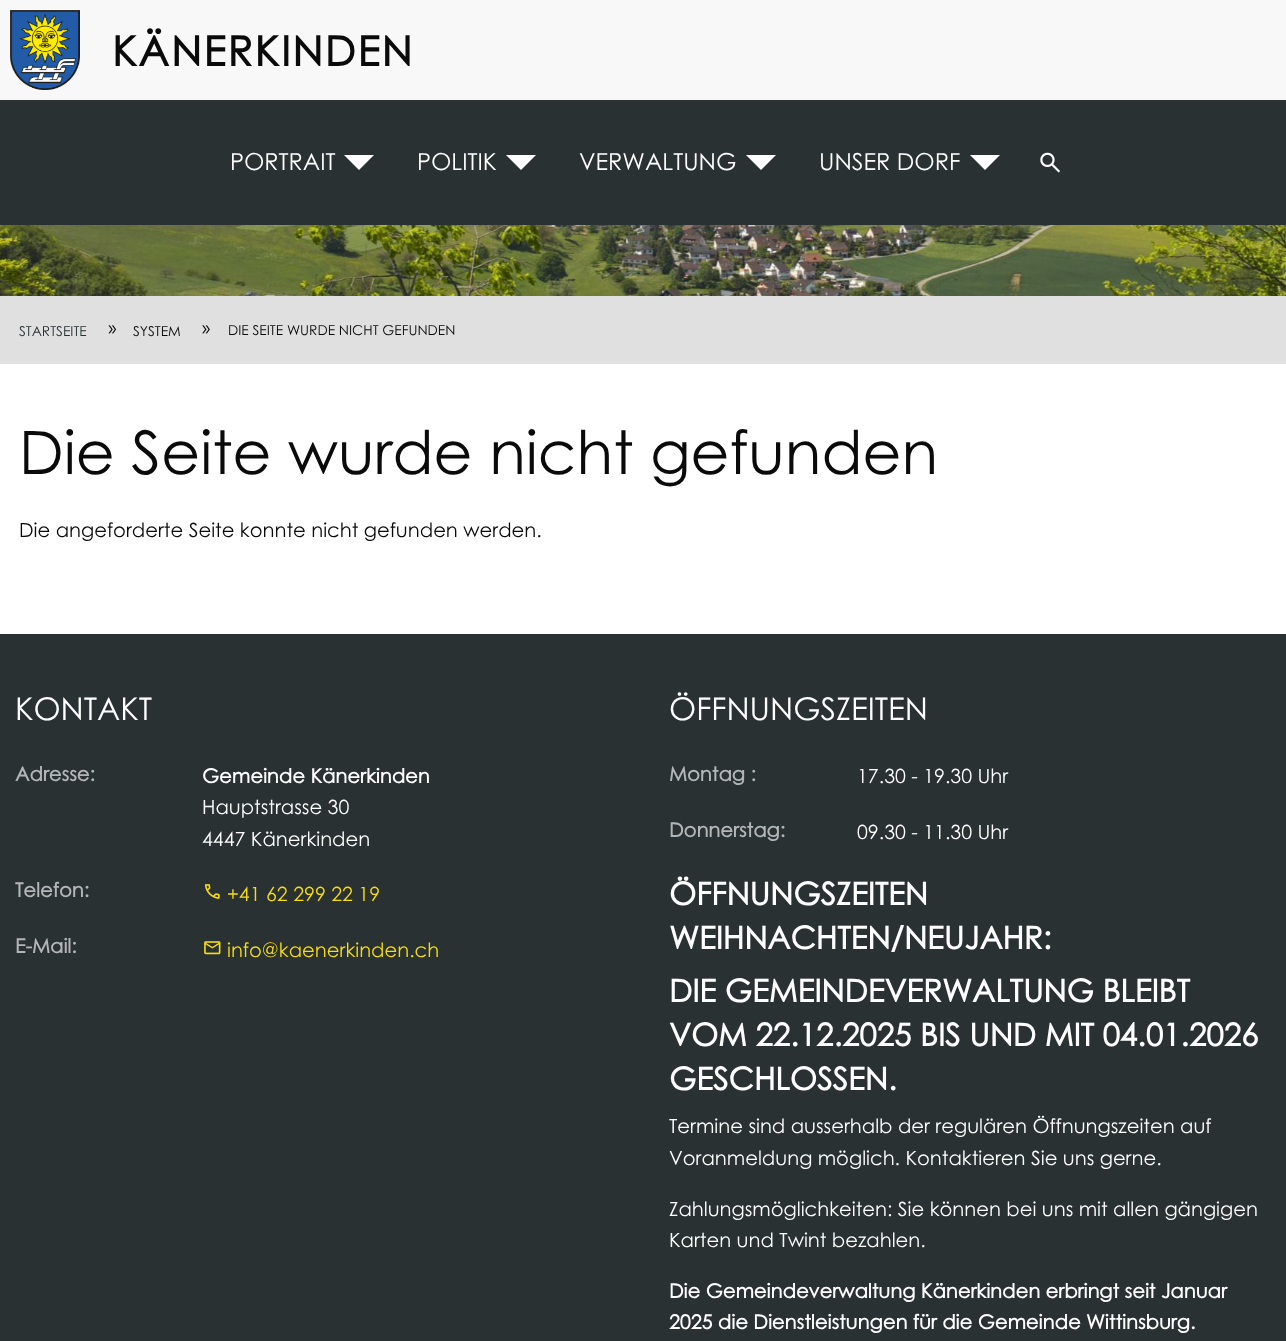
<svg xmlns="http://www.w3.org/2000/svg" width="1286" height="1341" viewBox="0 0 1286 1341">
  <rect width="100%" height="100%" fill="#ffffff"/>
  <rect x="0" y="0" width="1286" height="100" fill="#f8f8f8"/>
  <image x="10" y="10" width="70" height="80" href="img1.png"/>
  <text x="112" y="66" font-family="Century Gothic" font-size="41.25" font-weight="bold" letter-spacing="2" fill="#0a0a0a">KÄNERKINDEN</text>
  <rect x="0" y="100" width="1286" height="125" fill="#293133"/>
  <text x="230" y="170" font-family="Century Gothic" font-size="23.5" fill="#fefefe">PORTRAIT</text>
  <path d="M344 155H374L359 170Z" fill="#fefefe"/>
  <text x="417" y="170" font-family="Century Gothic" font-size="23.5" fill="#fefefe">POLITIK</text>
  <path d="M506 155H536L521 170Z" fill="#fefefe"/>
  <text x="579" y="170" font-family="Century Gothic" font-size="23.5" fill="#fefefe">VERWALTUNG</text>
  <path d="M746 155H776L761 170Z" fill="#fefefe"/>
  <text x="819" y="170" font-family="Century Gothic" font-size="23.5" fill="#fefefe">UNSER DORF</text>
  <path d="M970 155H1000L985 170Z" fill="#fefefe"/>
  <image x="1040" y="152" width="20" height="21" href="img2.png"/>
  <image x="0" y="225" width="1286" height="71" href="img3.png"/>
  <rect x="0" y="296" width="1286" height="68" fill="#e0e0e0"/>
  <text x="19" y="336" font-family="Century Gothic" font-size="13.75" fill="#293133">STARTSEITE</text>
  <image x="108" y="325" width="9" height="9" href="img4.png"/>
  <text x="133" y="336" font-family="Century Gothic" font-size="13.75" fill="#0a0a0a">SYSTEM</text>
  <image x="202" y="325" width="8" height="9" href="img5.png"/>
  <text x="228" y="335" font-family="Century Gothic" font-size="13.75" fill="#0a0a0a">DIE SEITE WURDE NICHT GEFUNDEN</text>
  <text x="19" y="474" font-family="Century Gothic" font-size="60" fill="#0a0a0a">Die Seite wurde nicht gefunden</text>
  <text x="19" y="537" font-family="Century Gothic" font-size="19.6" fill="#0a0a0a">Die angeforderte Seite konnte nicht gefunden werden.</text>
  <rect x="0" y="634" width="1286" height="707" fill="#293133"/>
  <text x="15" y="720" font-family="Century Gothic" font-size="31.25" fill="#fefefe">KONTAKT</text>
  <text x="15" y="781" font-family="Century Gothic" font-size="19.6" font-weight="bold" fill="#b3b6b7">Adresse:</text>
  <text x="202" y="783" font-family="Century Gothic" font-size="19.6" font-weight="bold" fill="#fefefe">Gemeinde Känerkinden</text>
  <text x="202" y="814" font-family="Century Gothic" font-size="19.6" fill="#fefefe">Hauptstrasse 30</text>
  <text x="202" y="846" font-family="Century Gothic" font-size="19.6" fill="#fefefe">4447 Känerkinden</text>
  <text x="15" y="897" font-family="Century Gothic" font-size="19.6" font-weight="bold" fill="#b3b6b7">Telefon:</text>
  <image x="205" y="884" width="15" height="15" href="img6.png"/>
  <text x="227" y="901" font-family="Century Gothic" font-size="19.6" fill="#f6dc14">+41 62 299 22 19</text>
  <text x="15" y="953" font-family="Century Gothic" font-size="19.6" font-weight="bold" fill="#b3b6b7">E-Mail:</text>
  <image x="204" y="941" width="17" height="14" href="img7.png"/>
  <text x="227" y="957" font-family="Century Gothic" font-size="19.6" fill="#f6dc14">info@kaenerkinden.ch</text>
  <text x="669" y="720" font-family="Century Gothic" font-size="31.25" fill="#fefefe">ÖFFNUNGSZEITEN</text>
  <text x="669" y="781" font-family="Century Gothic" font-size="19.6" font-weight="bold" fill="#b3b6b7">Montag :</text>
  <text x="857" y="783" font-family="Century Gothic" font-size="19.6" fill="#fefefe">17.30 - 19.30 Uhr</text>
  <text x="669" y="837" font-family="Century Gothic" font-size="19.6" font-weight="bold" fill="#b3b6b7">Donnerstag:</text>
  <text x="857" y="839" font-family="Century Gothic" font-size="19.6" fill="#fefefe">09.30 - 11.30 Uhr</text>
  <text x="669" y="905" font-family="Century Gothic" font-size="31.25" font-weight="bold" fill="#fefefe">ÖFFNUNGSZEITEN</text>
  <text x="669" y="949" font-family="Century Gothic" font-size="31.25" font-weight="bold" fill="#fefefe">WEIHNACHTEN/NEUJAHR:</text>
  <text x="669" y="1002" font-family="Century Gothic" font-size="31.25" font-weight="bold" fill="#fefefe">DIE GEMEINDEVERWALTUNG BLEIBT</text>
  <text x="669" y="1046" font-family="Century Gothic" font-size="31.25" font-weight="bold" fill="#fefefe">VOM 22.12.2025 BIS UND MIT 04.01.2026</text>
  <text x="669" y="1090" font-family="Century Gothic" font-size="31.25" font-weight="bold" fill="#fefefe">GESCHLOSSEN.</text>
  <text x="669" y="1133" font-family="Century Gothic" font-size="19.6" fill="#fefefe">Termine sind ausserhalb der regulären Öffnungszeiten auf</text>
  <text x="669" y="1165" font-family="Century Gothic" font-size="19.6" fill="#fefefe">Voranmeldung möglich. Kontaktieren Sie uns gerne.</text>
  <text x="669" y="1216" font-family="Century Gothic" font-size="19.6" fill="#fefefe">Zahlungsmöglichkeiten: Sie können bei uns mit allen gängigen</text>
  <text x="669" y="1247" font-family="Century Gothic" font-size="19.6" fill="#fefefe">Karten und Twint bezahlen.</text>
  <text x="669" y="1298" font-family="Century Gothic" font-size="19.6" font-weight="bold" fill="#fefefe">Die Gemeindeverwaltung Känerkinden erbringt seit Januar</text>
  <text x="669" y="1329" font-family="Century Gothic" font-size="19.6" font-weight="bold" fill="#fefefe">2025 die Dienstleistungen für die Gemeinde Wittinsburg.</text>
</svg>
